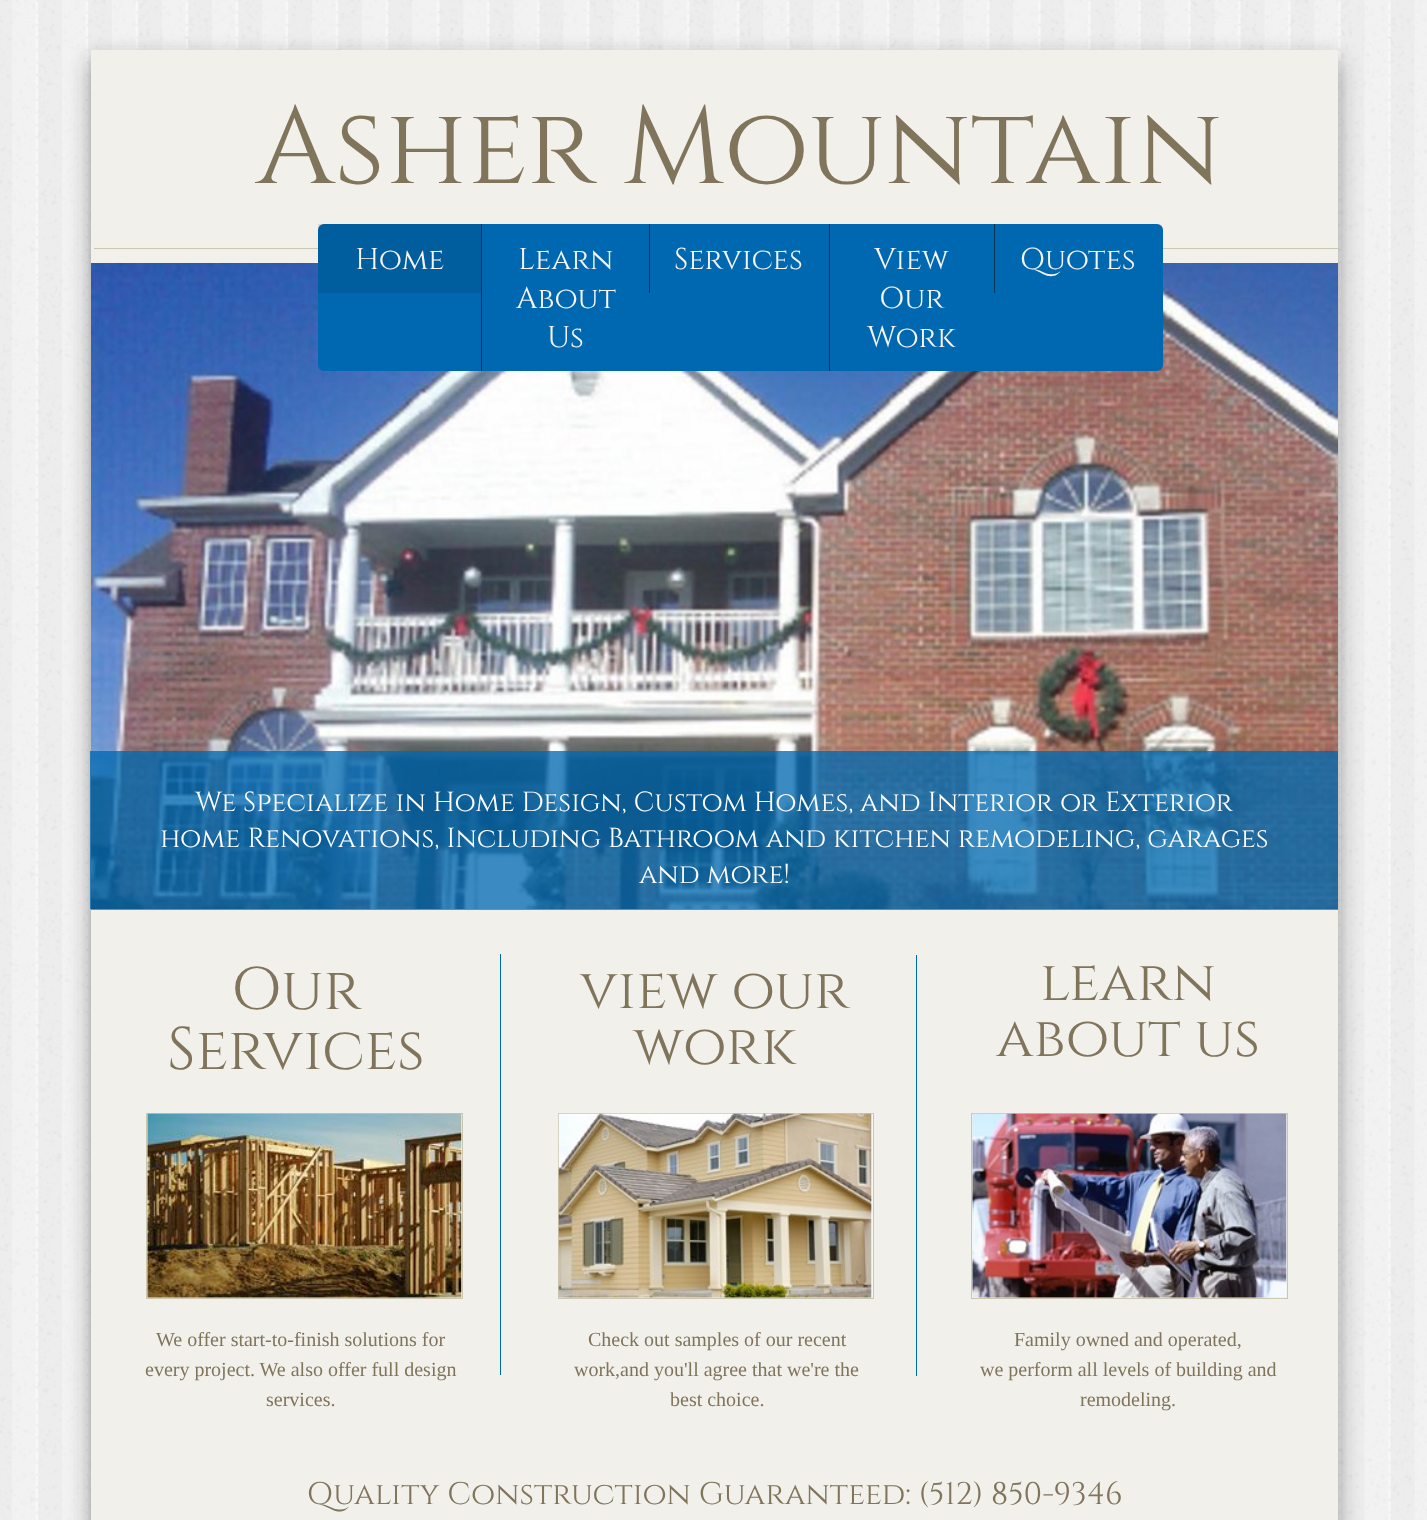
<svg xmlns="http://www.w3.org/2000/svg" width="1427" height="1520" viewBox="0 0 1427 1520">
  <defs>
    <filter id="blur1" x="-50%" y="-200%" width="200%" height="500%"><feGaussianBlur stdDeviation="10.5"/></filter>
  </defs>
  <rect width="100%" height="100%" fill="#ffffff"/>
  <image x="0" y="0" width="1427" height="1520" href="img1.png"/>
  <rect x="91" y="59" width="1247" height="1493" fill="#323232" fill-opacity="0.5" filter="url(#blur1)"/>
  <rect x="91" y="50" width="1247" height="1470" fill="#f1f0eb"/>
  <text x="256" y="183" font-family="Cinzel" font-size="110" fill="#80745b">Asher Mountain</text>
  <rect x="94" y="248" width="1246" height="1" fill="#cbc7b1"/>
  <image x="91" y="263" width="1247" height="646" href="img2.png"/>
  <rect x="318" y="224" width="845" height="147" rx="6" fill="#0068b0"/>
  <rect x="318" y="224" width="163" height="69" fill="#000000" fill-opacity="0.1"/>
  <text x="355" y="269" font-family="Cinzel" font-size="30" fill="#f6f5f2">Home</text>
  <rect x="481" y="224" width="1" height="147" fill="#003255"/>
  <text x="518" y="269" font-family="Cinzel" font-size="30" fill="#f6f5f2">Learn</text>
  <text x="516" y="308" font-family="Cinzel" font-size="30" fill="#f6f5f2">About</text>
  <text x="547" y="347" font-family="Cinzel" font-size="30" fill="#f6f5f2">Us</text>
  <rect x="649" y="224" width="1" height="69" fill="#003255"/>
  <text x="674" y="269" font-family="Cinzel" font-size="30" fill="#f6f5f2">Services</text>
  <rect x="829" y="224" width="1" height="147" fill="#003255"/>
  <text x="874" y="269" font-family="Cinzel" font-size="30" fill="#f6f5f2">View</text>
  <text x="879" y="308" font-family="Cinzel" font-size="30" fill="#f6f5f2">Our</text>
  <text x="867" y="347" font-family="Cinzel" font-size="30" fill="#f6f5f2">Work</text>
  <rect x="994" y="224" width="1" height="69" fill="#003255"/>
  <text x="1020" y="269" font-family="Cinzel" font-size="30" fill="#f6f5f2">Quotes</text>
  <rect x="91" y="909" width="1247" height="1" fill="#ee6722"/>
  <rect x="90" y="751" width="1248" height="158" fill="#0068b0" fill-opacity="0.77"/>
  <text x="195" y="811" font-family="Cinzel" font-size="27.5" fill="#ffffff">We Specialize in Home Design, Custom Homes, and Interior or Exterior</text>
  <text x="160" y="847" font-family="Cinzel" font-size="27.5" fill="#ffffff">home Renovations, Including Bathroom and kitchen remodeling, garages</text>
  <text x="639" y="883" font-family="Cinzel" font-size="27.5" fill="#ffffff">and more!</text>
  <text x="231" y="1009" font-family="Cinzel" font-size="60" fill="#80745b">Our</text>
  <text x="167" y="1069" font-family="Cinzel" font-size="60" fill="#80745b">Services</text>
  <rect x="500" y="954" width="1" height="421" fill="#0068b0"/>
  <text x="580" y="1008" font-family="Cinzel" font-size="56.25" fill="#80745b">view our</text>
  <text x="633" y="1064" font-family="Cinzel" font-size="56.25" fill="#80745b">work</text>
  <rect x="916" y="955" width="1" height="421" fill="#0068b0"/>
  <text x="1040" y="1000" font-family="Cinzel" font-size="56.25" fill="#80745b">learn</text>
  <text x="996" y="1056" font-family="Cinzel" font-size="56.25" fill="#80745b">about us</text>
  <rect x="146.5" y="1113.5" width="316" height="185" fill="none" stroke="#cbc7b1"/>
  <image x="147" y="1113" width="315" height="185" href="img3.png"/>
  <rect x="558.5" y="1113.5" width="315" height="185" fill="none" stroke="#cbc7b1"/>
  <image x="558" y="1113" width="315" height="185" href="img4.png"/>
  <rect x="971.5" y="1113.5" width="316" height="185" fill="none" stroke="#cbc7b1"/>
  <image x="972" y="1113" width="315" height="185" href="img5.png"/>
  <text x="156" y="1346" font-family="Liberation Serif" font-size="20" fill="#80745b">We offer start-to-finish solutions for</text>
  <text x="145" y="1376" font-family="Liberation Serif" font-size="20" fill="#80745b">every project. We also offer full design</text>
  <text x="266" y="1406" font-family="Liberation Serif" font-size="20" fill="#80745b">services.</text>
  <text x="588" y="1346" font-family="Liberation Serif" font-size="20" fill="#80745b">Check out samples of our recent</text>
  <text x="574" y="1376" font-family="Liberation Serif" font-size="20" fill="#80745b">work,and you'll agree that we're the</text>
  <text x="670" y="1406" font-family="Liberation Serif" font-size="20" fill="#80745b">best choice.</text>
  <text x="1014" y="1346" font-family="Liberation Serif" font-size="20" fill="#80745b">Family owned and operated,</text>
  <text x="980" y="1376" font-family="Liberation Serif" font-size="20" fill="#80745b">we perform all levels of building and</text>
  <text x="1080" y="1406" font-family="Liberation Serif" font-size="20" fill="#80745b">remodeling.</text>
  <text x="307" y="1504" font-family="Cinzel" font-size="31.25" fill="#80745b">Quality Construction Guaranteed: (512) 850-9346</text>
</svg>
